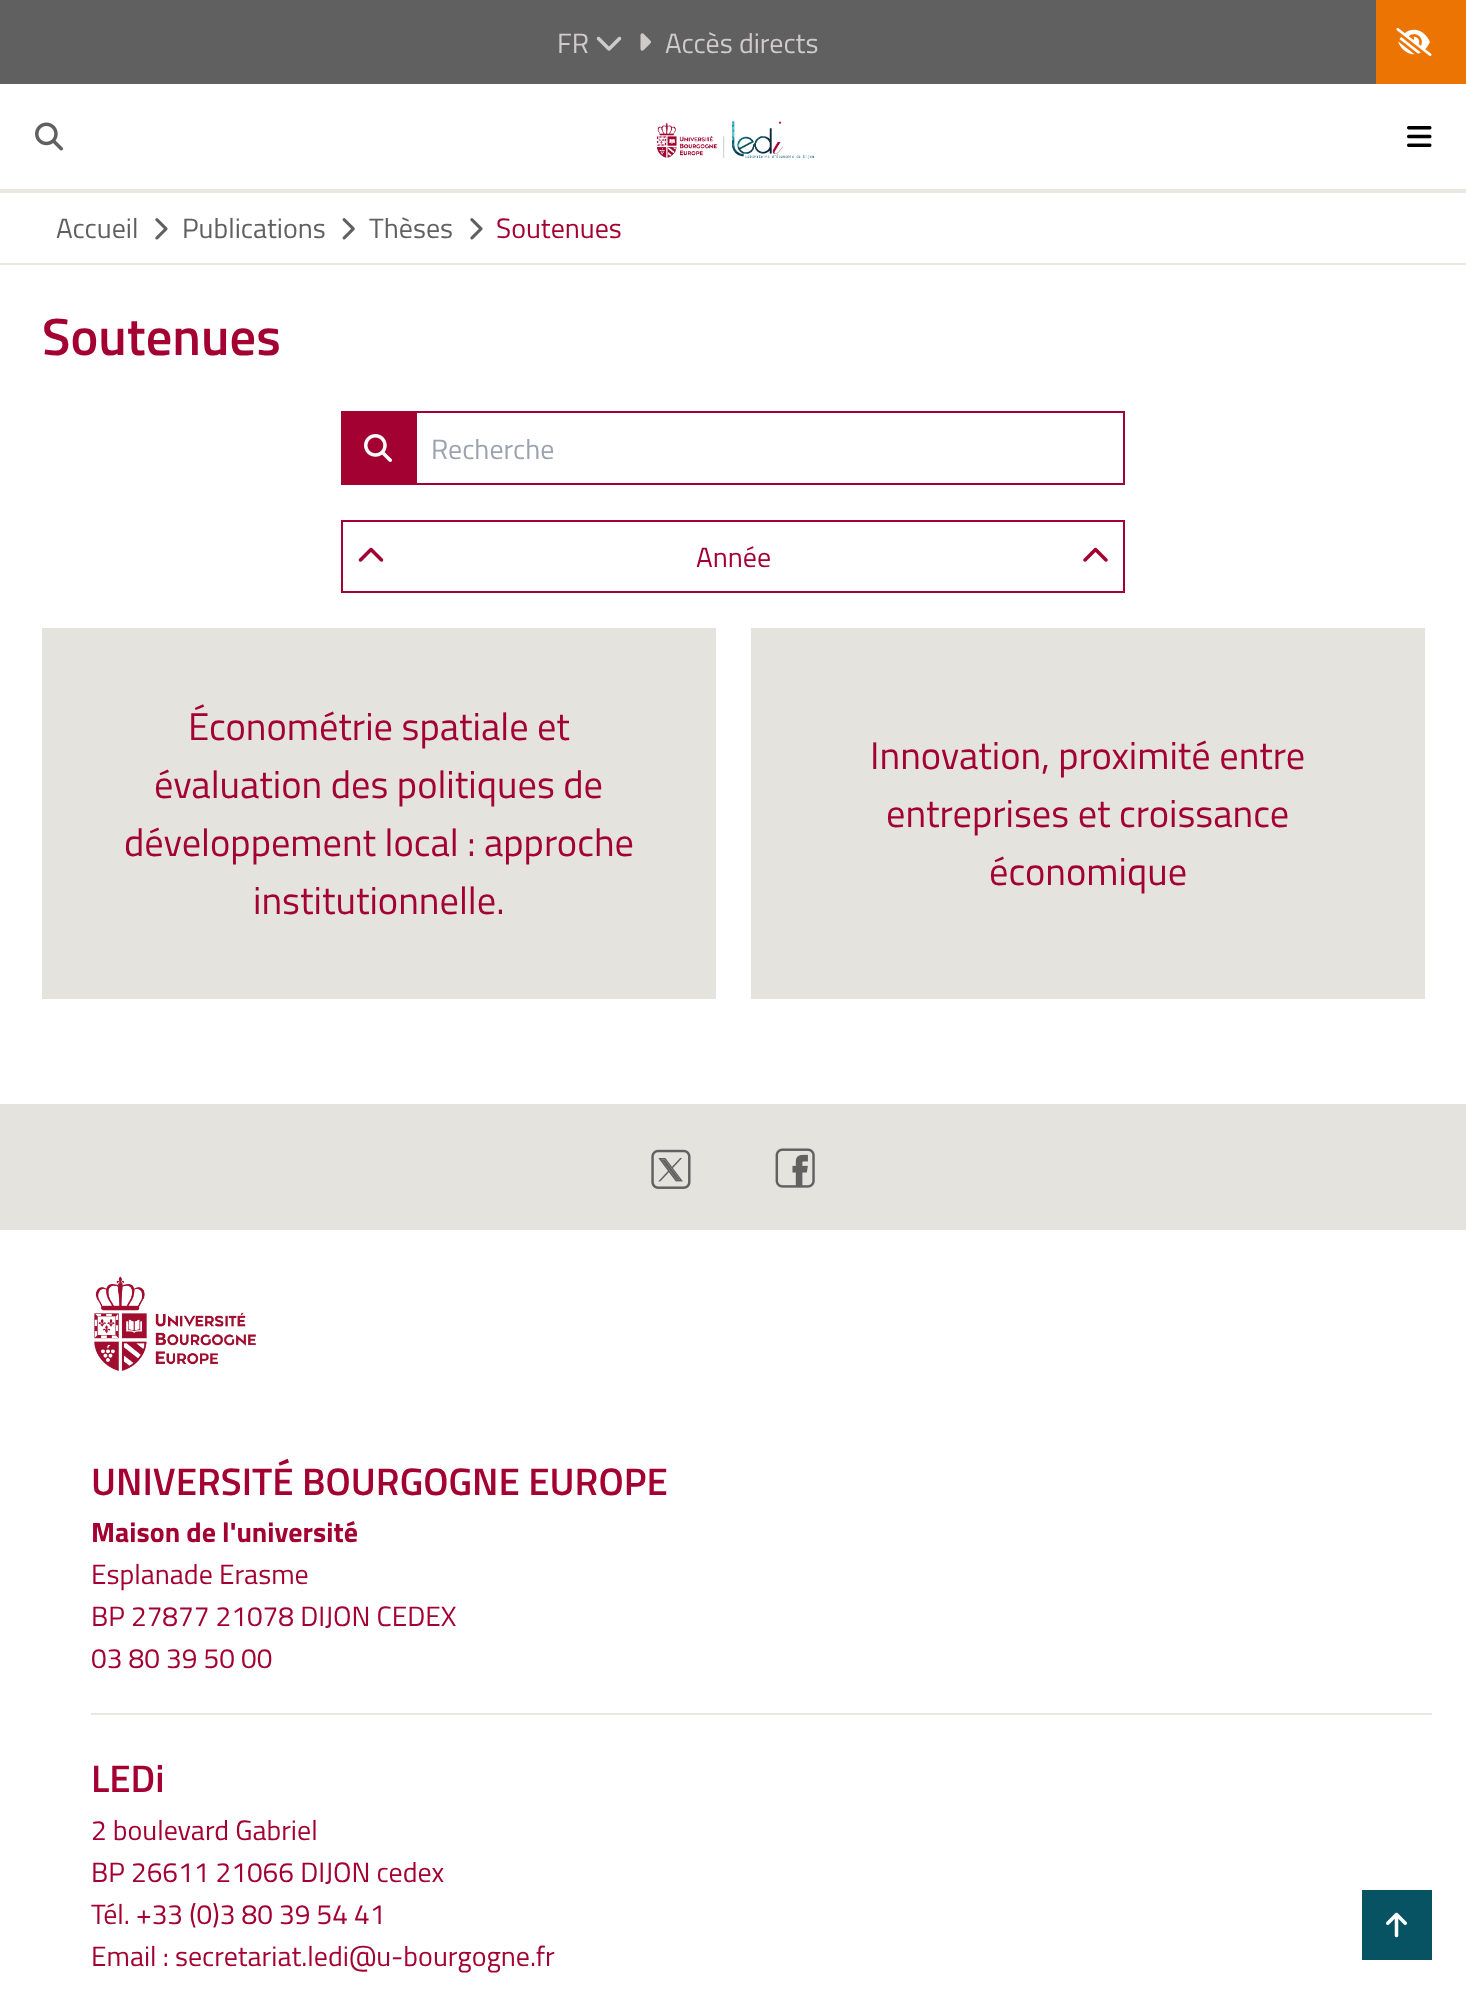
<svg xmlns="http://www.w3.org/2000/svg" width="1466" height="1995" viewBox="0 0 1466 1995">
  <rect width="100%" height="100%" fill="#ffffff"/>
  <rect x="0" y="0" width="1376" height="84" fill="#606060"/>
  <text x="557" y="53" font-family="Titillium Web" font-size="28" fill="#cfcbcb">FR</text>
  <image x="596" y="36" width="26" height="15" href="img1.png"/>
  <image x="640" y="33" width="11" height="18" href="img2.png"/>
  <text x="665" y="53" font-family="Titillium Web" font-size="28" fill="#cfcbcb">Accès directs</text>
  <rect x="1376" y="0" width="90" height="84" fill="#ec7402"/>
  <image x="1396" y="28" width="36" height="28" href="img3.png"/>
  <rect x="0" y="189" width="1466" height="4" fill="#e9e8e0"/>
  <image x="35" y="122" width="28" height="29" href="img4.png"/>
  <image x="656" y="121" width="158" height="38" href="img5.png"/>
  <image x="1407" y="126" width="25" height="21" href="img6.png"/>
  <rect x="0" y="263" width="1466" height="2" fill="#e9e8e0"/>
  <text x="56" y="238" font-family="Titillium Web" font-size="28" fill="#606060">Accueil</text>
  <image x="155" y="218" width="13" height="22" href="img7.png"/>
  <text x="182" y="238" font-family="Titillium Web" font-size="28" fill="#606060">Publications</text>
  <image x="342" y="218" width="13" height="22" href="img8.png"/>
  <text x="369" y="238" font-family="Titillium Web" font-size="28" fill="#606060">Thèses</text>
  <image x="470" y="218" width="13" height="22" href="img7.png"/>
  <text x="496" y="238" font-family="Titillium Web" font-size="28" fill="#a40133">Soutenues</text>
  <text x="42" y="355" font-family="Titillium Web" font-size="52.5" font-weight="600" fill="#a40133">Soutenues</text>
  <rect x="341" y="411" width="74" height="74" fill="#a40133"/>
  <image x="364" y="434" width="28" height="28" href="img9.png"/>
  <rect x="416" y="412" width="708" height="72" fill="none" stroke="#a40133" stroke-width="2"/>
  <text x="431" y="459" font-family="Titillium Web" font-size="28" fill="#9ca3af">Recherche</text>
  <rect x="342" y="521" width="782" height="71" fill="none" stroke="#a40133" stroke-width="2"/>
  <image x="358" y="547" width="26" height="15" href="img10.png"/>
  <text x="696" y="567" font-family="Titillium Web" font-size="28" fill="#a40133">Année</text>
  <image x="1083" y="547" width="25" height="15" href="img11.png"/>
  <rect x="42" y="628" width="674" height="371" fill="#e4e3de"/>
  <text x="188" y="740" font-family="Titillium Web" font-size="38.5" fill="#a40133">Économétrie spatiale et</text>
  <text x="154" y="798" font-family="Titillium Web" font-size="38.5" fill="#a40133">évaluation des politiques de</text>
  <text x="124" y="856" font-family="Titillium Web" font-size="38.5" fill="#a40133">développement local : approche</text>
  <text x="253" y="914" font-family="Titillium Web" font-size="38.5" fill="#a40133">institutionnelle.</text>
  <rect x="751" y="628" width="674" height="371" fill="#e4e3de"/>
  <text x="870" y="769" font-family="Titillium Web" font-size="38.5" fill="#a40133">Innovation, proximité entre</text>
  <text x="886" y="827" font-family="Titillium Web" font-size="38.5" fill="#a40133">entreprises et croissance</text>
  <text x="989" y="885" font-family="Titillium Web" font-size="38.5" fill="#a40133">économique</text>
  <rect x="0" y="1104" width="1466" height="126" fill="#e4e3de"/>
  <image x="651" y="1149" width="40" height="40" href="img12.png"/>
  <image x="775" y="1148" width="40" height="40" href="img13.png"/>
  <image x="94" y="1276" width="162" height="95" href="img14.png"/>
  <text x="91" y="1495" font-family="Titillium Web" font-size="38.5" font-weight="600" fill="#a40133">UNIVERSITÉ BOURGOGNE EUROPE</text>
  <text x="91" y="1542" font-family="Titillium Web" font-size="28" font-weight="bold" fill="#a40133">Maison de l'université</text>
  <text x="91" y="1584" font-family="Titillium Web" font-size="28" fill="#a40133">Esplanade Erasme</text>
  <text x="91" y="1626" font-family="Titillium Web" font-size="28" fill="#a40133">BP 27877 21078 DIJON CEDEX</text>
  <text x="91" y="1668" font-family="Titillium Web" font-size="28" fill="#a40133">03 80 39 50 00</text>
  <rect x="91" y="1713" width="1341" height="2" fill="#e9e8e0"/>
  <text x="91" y="1792" font-family="Titillium Web" font-size="38.5" font-weight="600" fill="#a40133">LEDi</text>
  <text x="91" y="1840" font-family="Titillium Web" font-size="28" fill="#a40133">2 boulevard Gabriel</text>
  <text x="91" y="1882" font-family="Titillium Web" font-size="28" fill="#a40133">BP 26611 21066 DIJON cedex</text>
  <text x="91" y="1924" font-family="Titillium Web" font-size="28" fill="#a40133">Tél. +33 (0)3 80 39 54 41</text>
  <text x="91" y="1966" font-family="Titillium Web" font-size="28" fill="#a40133">Email : secretariat.ledi@u-bourgogne.fr</text>
  <rect x="1362" y="1890" width="70" height="70" fill="#075363"/>
  <image x="1386" y="1912" width="21" height="26" href="img15.png"/>
</svg>
